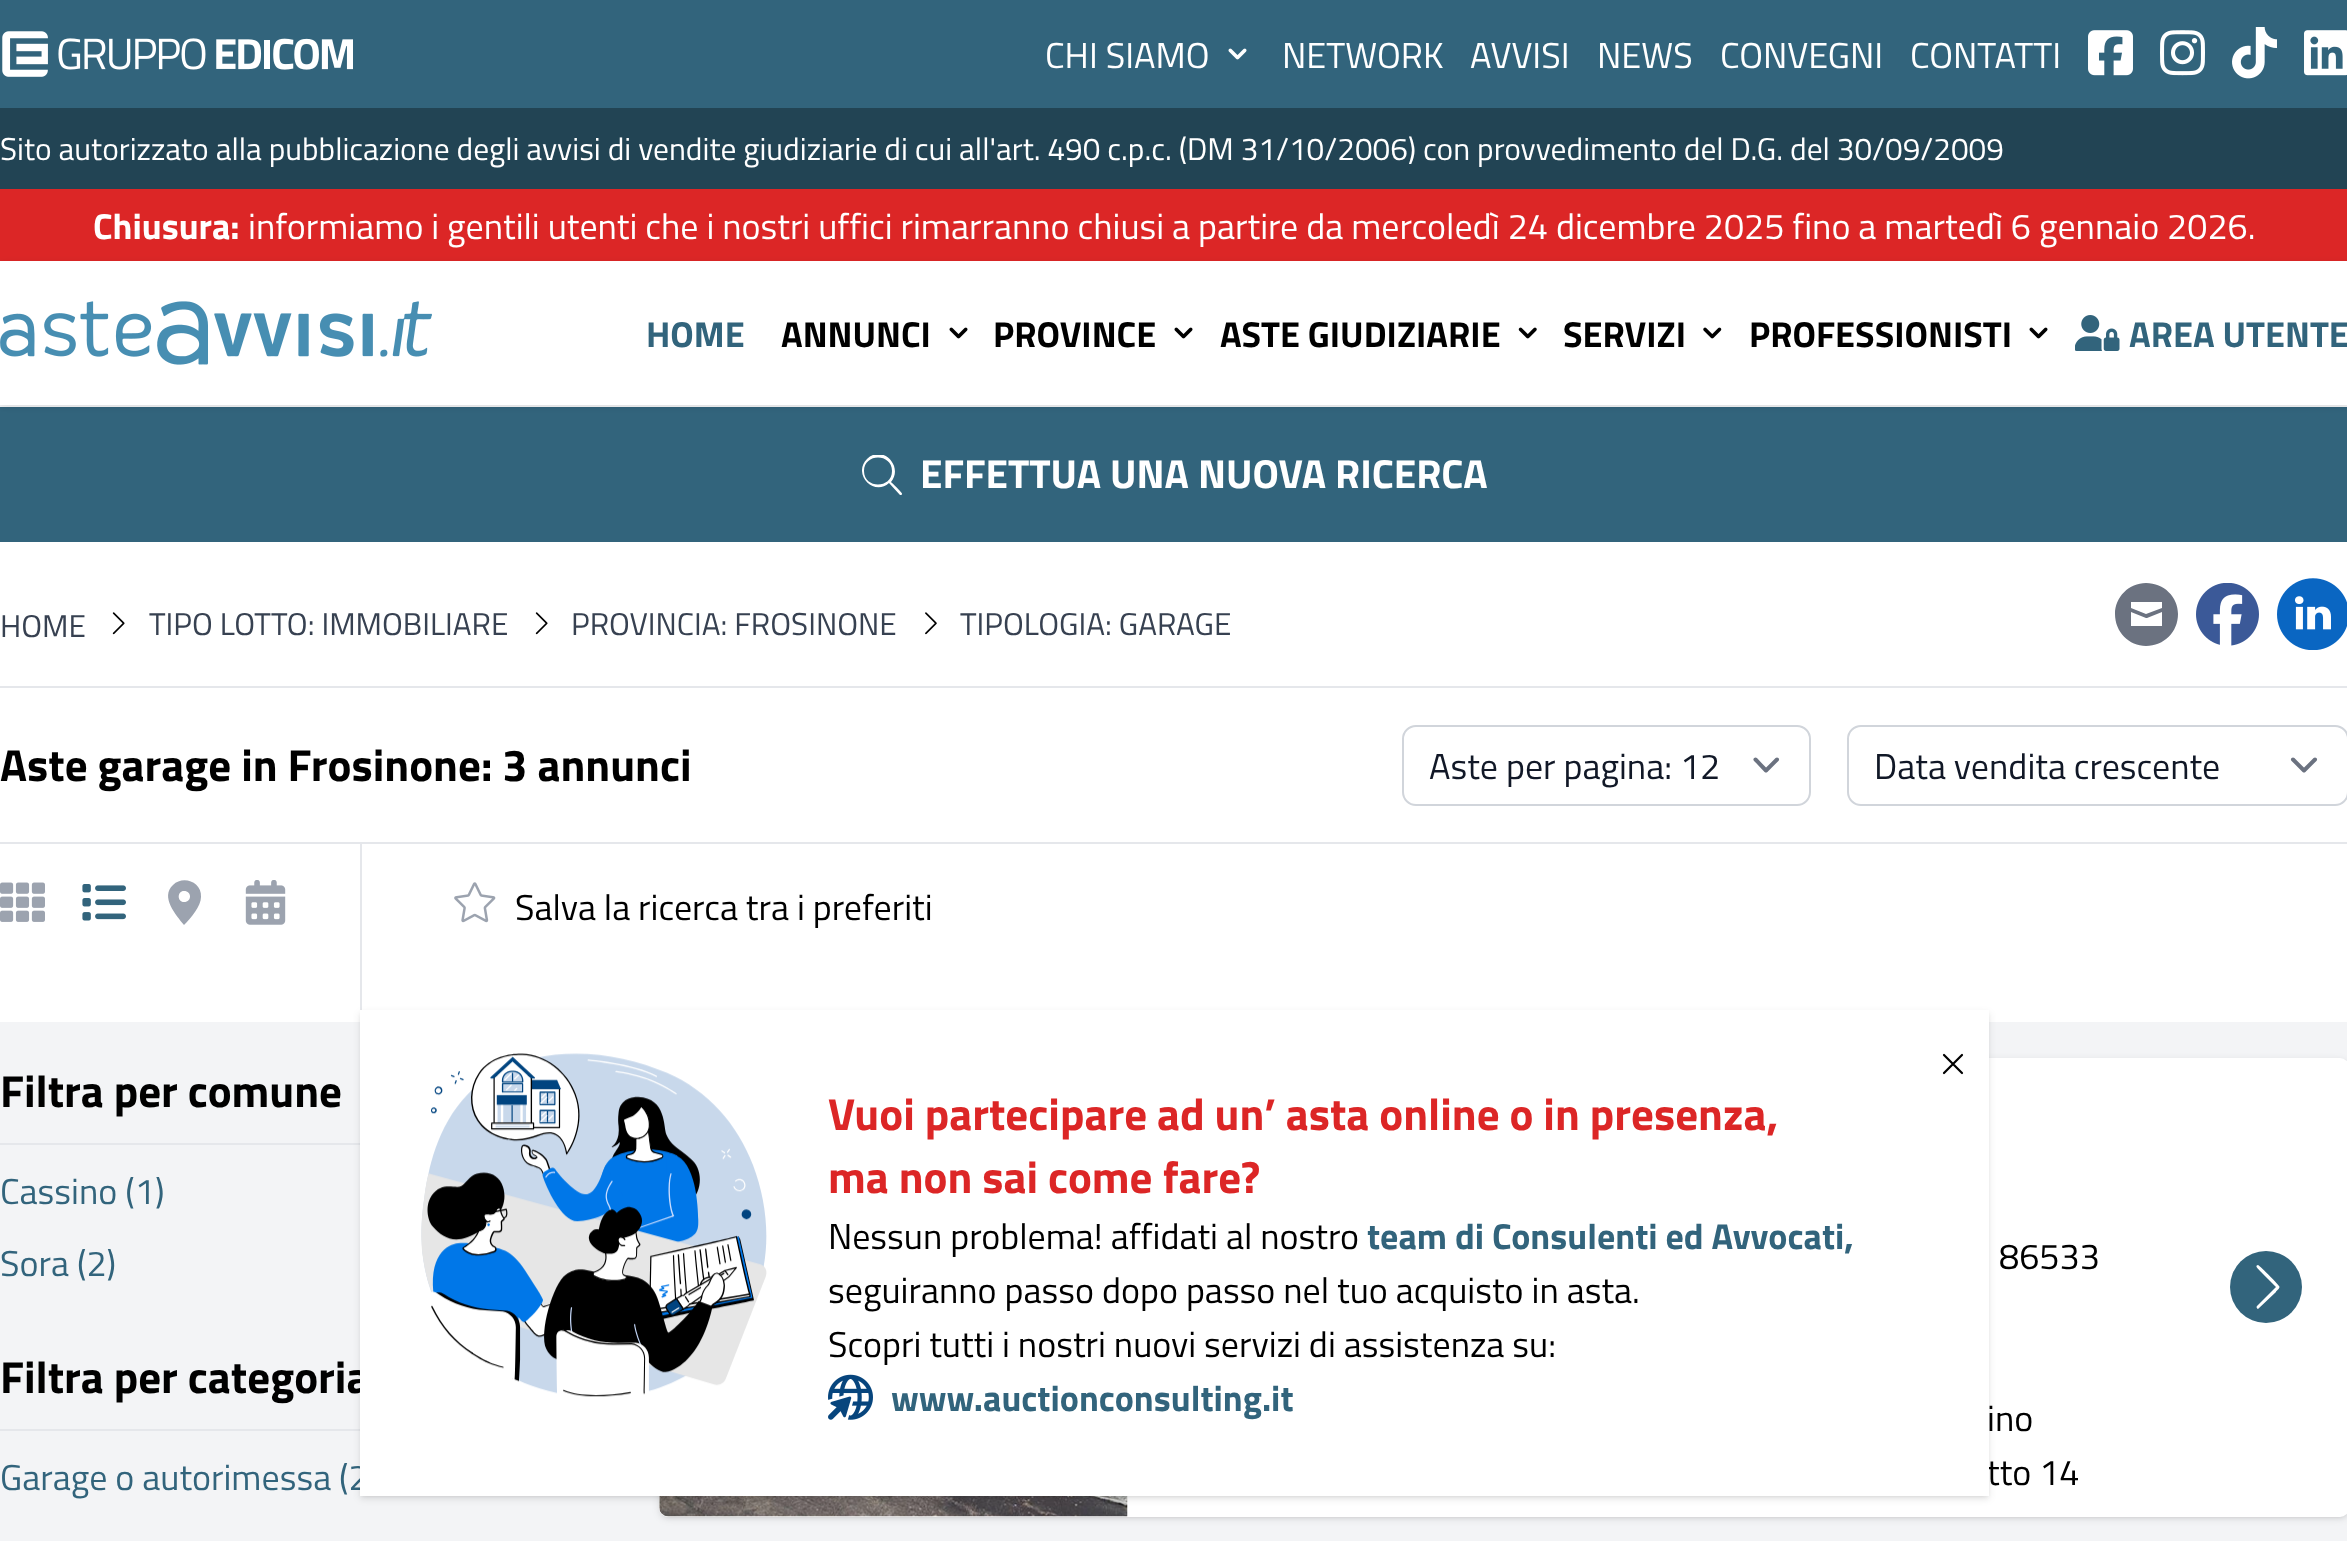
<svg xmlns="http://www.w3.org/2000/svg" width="2347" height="1541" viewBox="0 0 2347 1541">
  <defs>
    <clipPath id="clip1"><path d="M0 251H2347V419H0ZM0 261H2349V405H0Z" clip-rule="evenodd"/></clipPath>
    <filter id="blur1" x="-50%" y="-200%" width="200%" height="500%"><feGaussianBlur stdDeviation="3.5"/></filter>
    <clipPath id="clip2"><rect x="862" y="455" width="40" height="40"/></clipPath>
    <filter id="blur2" x="-50%" y="-200%" width="200%" height="500%"><feGaussianBlur stdDeviation="2"/></filter>
  </defs>
  <rect width="100%" height="100%" fill="#ffffff"/>
  <rect x="0" y="405" width="2347" height="2" fill="#f3f4f6"/>
  <rect x="0" y="0" width="2347" height="108" fill="#32647c"/>
  <image x="2" y="31" width="351" height="46" href="img1.png"/>
  <text x="1045" y="68" font-family="Titillium Web" font-size="36" fill="#ffffff">CHI SIAMO</text>
  <image x="1228" y="48" width="19" height="12" href="img2.png"/>
  <text x="1282" y="68" font-family="Titillium Web" font-size="36" fill="#ffffff">NETWORK</text>
  <text x="1470" y="68" font-family="Titillium Web" font-size="36" fill="#ffffff">AVVISI</text>
  <text x="1597" y="68" font-family="Titillium Web" font-size="36" fill="#ffffff">NEWS</text>
  <text x="1720" y="68" font-family="Titillium Web" font-size="36" fill="#ffffff">CONVEGNI</text>
  <text x="1910" y="68" font-family="Titillium Web" font-size="36" fill="#ffffff">CONTATTI</text>
  <image x="2088" y="30" width="45" height="46" href="img3.png"/>
  <image x="2160" y="30" width="45" height="46" href="img4.png"/>
  <image x="2232" y="27" width="45" height="52" href="img5.png"/>
  <image x="2304" y="30" width="43" height="46" href="img6.png"/>
  <rect x="0" y="108" width="2347" height="81" fill="#224454"/>
  <text x="0" y="160" font-family="Titillium Web" font-size="31.5" fill="#ffffff">Sito autorizzato alla pubblicazione degli avvisi di vendite giudiziarie di cui all'art. 490 c.p.c. (DM 31/10/2006) con provvedimento del D.G. del 30/09/2009</text>
  <rect x="0" y="189" width="2347" height="72" fill="#dc2626"/>
  <text x="93" y="239" font-family="Titillium Web" font-size="36" font-weight="bold" fill="#ffffff">Chiusura:</text>
  <text x="248" y="239" font-family="Titillium Web" font-size="36" fill="#ffffff">informiamo i gentili utenti che i nostri uffici rimarranno chiusi a partire da mercoledì 24 dicembre 2025 fino a martedì 6 gennaio 2026.</text>
  <rect x="0" y="407" width="2347" height="135" fill="#32647c"/>
  <g clip-path="url(#clip1)">
    <rect x="0" y="263" width="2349" height="144" fill="#000000" fill-opacity="0.1" filter="url(#blur1)"/>
  </g>
  <image x="0" y="301" width="432" height="64" href="img7.png"/>
  <text x="646" y="347" font-family="Titillium Web" font-size="36" font-weight="bold" fill="#32647c">HOME</text>
  <text x="781" y="347" font-family="Titillium Web" font-size="36" font-weight="bold" fill="#000000">ANNUNCI</text>
  <image x="949" y="327" width="19" height="12" href="img8.png"/>
  <text x="993" y="347" font-family="Titillium Web" font-size="36" font-weight="bold" fill="#000000">PROVINCE</text>
  <image x="1174" y="327" width="19" height="12" href="img8.png"/>
  <text x="1220" y="347" font-family="Titillium Web" font-size="36" font-weight="bold" fill="#000000">ASTE GIUDIZIARIE</text>
  <image x="1518" y="327" width="19" height="12" href="img9.png"/>
  <text x="1563" y="347" font-family="Titillium Web" font-size="36" font-weight="bold" fill="#000000">SERVIZI</text>
  <image x="1703" y="327" width="19" height="12" href="img10.png"/>
  <text x="1749" y="347" font-family="Titillium Web" font-size="36" font-weight="bold" fill="#000000">PROFESSIONISTI</text>
  <image x="2029" y="327" width="19" height="12" href="img8.png"/>
  <image x="2075" y="315" width="45" height="36" href="img11.png"/>
  <text x="2129" y="347" font-family="Titillium Web" font-size="36" font-weight="bold" fill="#32647c">AREA UTENTE</text>
  <g clip-path="url(#clip2)">
    <path d="M892 471C892 453 864 453 864 471C864 489 892 489 892 471ZM889 483C874 497 852 474 867 459C882 444 904 466 891 482C892 483 903 493 902 494C902 495 901 495 900 495Z" fill="#ffffff"/>
  </g>
  <text x="920" y="488" font-family="Titillium Web" font-size="40.5" font-weight="bold" fill="#ffffff">EFFETTUA UNA NUOVA RICERCA</text>
  <text x="0" y="637" font-family="Titillium Web" font-size="31.5" fill="#374151">HOME</text>
  <image x="112" y="612" width="13" height="23" href="img12.png"/>
  <text x="149" y="635" font-family="Titillium Web" font-size="31.5" fill="#374151">TIPO LOTTO: IMMOBILIARE</text>
  <image x="535" y="612" width="13" height="23" href="img12.png"/>
  <text x="571" y="635" font-family="Titillium Web" font-size="31.5" fill="#374151">PROVINCIA: FROSINONE</text>
  <image x="925" y="612" width="12" height="23" href="img13.png"/>
  <text x="960" y="635" font-family="Titillium Web" font-size="31.5" fill="#374151">TIPOLOGIA: GARAGE</text>
  <path d="M2146 646C2164 646 2178 632 2178 614C2178 597 2164 583 2146 583C2129 583 2115 597 2115 614C2115 632 2129 646 2146 646ZM2131 608V602H2162V608L2146 614ZM2147 618L2162 612V626H2131V612L2146 618Z" fill="#6b7280"/>
  <image x="2196" y="583" width="63" height="63" href="img14.png"/>
  <image x="2277" y="578" width="70" height="72" href="img15.png"/>
  <rect x="0" y="686" width="2347" height="2" fill="#e5e7eb"/>
  <text x="0" y="781" font-family="Titillium Web" font-size="45" font-weight="bold" fill="#000000">Aste garage in Frosinone: 3 annunci</text>
  <path d="M1755.5 759.5L1766 770.5L1777 759.5" fill="none" stroke="#6b7280" stroke-width="4" stroke-linecap="round" stroke-linejoin="round"/>
  <rect x="1403" y="726" width="407" height="79" rx="13" fill="none" stroke="#d1d5db" stroke-width="2"/>
  <text x="1429" y="779" font-family="Titillium Web" font-size="36" fill="#111827">Aste per pagina: 12</text>
  <path d="M2293 759.5L2304 770.5L2315 759.5" fill="none" stroke="#6b7280" stroke-width="4" stroke-linecap="round" stroke-linejoin="round"/>
  <rect x="1848" y="726" width="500" height="79" rx="13" fill="none" stroke="#d1d5db" stroke-width="2"/>
  <text x="1874" y="779" font-family="Titillium Web" font-size="36" fill="#111827">Data vendita crescente</text>
  <rect x="0" y="842" width="2347" height="2" fill="#e5e7eb"/>
  <rect x="360" y="844" width="2" height="166" fill="#e5e7eb"/>
  <image x="0" y="882" width="45" height="40" href="img16.png"/>
  <image x="82" y="884" width="44" height="37" href="img17.png"/>
  <path d="M184 925C191 918 201 906 201 897C202 882 183 875 173 885C160 897 176 915 184 925ZM184 891C192 891 192 902 184 902C177 902 177 891 184 891Z" fill="#9ca3af"/>
  <image x="245" y="880" width="41" height="45" href="img18.png"/>
  <image x="454" y="882" width="42" height="41" href="img19.png"/>
  <text x="515" y="920" font-family="Titillium Web" font-size="36" fill="#000000">Salva la ricerca tra i preferiti</text>
  <rect x="0" y="1022" width="2347" height="519" fill="#f3f4f6"/>
  <rect x="0" y="1143" width="360" height="2" fill="#e5e7eb"/>
  <text x="0" y="1107" font-family="Titillium Web" font-size="45" font-weight="bold" fill="#000000">Filtra per comune</text>
  <text x="0" y="1204" font-family="Titillium Web" font-size="36" fill="#32647c">Cassino (1)</text>
  <text x="0" y="1276" font-family="Titillium Web" font-size="36" fill="#32647c">Sora (2)</text>
  <rect x="0" y="1429" width="360" height="2" fill="#e5e7eb"/>
  <text x="0" y="1393" font-family="Titillium Web" font-size="45" font-weight="bold" fill="#000000">Filtra per categoria</text>
  <text x="0" y="1490" font-family="Titillium Web" font-size="36" fill="#32647c">Garage o autorimessa (2</text>
  <rect x="662" y="1062" width="1685" height="455" rx="7" fill="#000000" fill-opacity="0.1" filter="url(#blur2)"/>
  <rect x="659" y="1060" width="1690" height="459" rx="9" fill="#000000" fill-opacity="0.1" filter="url(#blur1)"/>
  <rect x="659" y="1058" width="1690" height="459" rx="9" fill="#ffffff"/>
  <text x="1999" y="1269" font-family="Titillium Web" font-size="36" fill="#000000">86533</text>
  <text x="1987" y="1431" font-family="Titillium Web" font-size="36" fill="#000000">ino</text>
  <text x="1987" y="1485" font-family="Titillium Web" font-size="36" fill="#000000">tto 14</text>
  <circle cx="2266" cy="1287" r="36" fill="#32647c"/>
  <path d="M2279 1286C2281 1288 2276 1291 2276 1292L2258 1309C2257 1309 2256 1307 2257 1306L2276 1287L2263 1274C2258 1269 2254 1266 2258 1265C2259 1265 2277 1283 2279 1286Z" fill="#ffffff"/>
  <image x="659" y="1496" width="469" height="21" href="img20.png"/>
  <rect x="362" y="1015" width="1625" height="481" fill="#000000" fill-opacity="0.1" filter="url(#blur2)"/>
  <rect x="360" y="1013" width="1629" height="486" fill="#000000" fill-opacity="0.1" filter="url(#blur1)"/>
  <rect x="360" y="1010" width="1629" height="486" fill="#ffffff"/>
  <path d="M1944 1073L1962 1055M1944 1055L1962 1073" fill="none" stroke="#000000" stroke-width="2.2" stroke-linecap="round" stroke-linejoin="round"/>
  <image x="421" y="1053" width="346" height="344" href="img21.png"/>
  <text x="828" y="1130" font-family="Titillium Web" font-size="45" font-weight="bold" fill="#dc2626">Vuoi partecipare ad un’ asta online o in presenza,</text>
  <text x="828" y="1193" font-family="Titillium Web" font-size="45" font-weight="bold" fill="#dc2626">ma non sai come fare?</text>
  <text x="828" y="1249" font-family="Titillium Web" font-size="36" fill="#000000">Nessun problema! affidati al nostro</text>
  <text x="1367" y="1249" font-family="Titillium Web" font-size="36" font-weight="bold" fill="#32647c">team di Consulenti ed Avvocati,</text>
  <text x="828" y="1303" font-family="Titillium Web" font-size="36" fill="#000000">seguiranno passo dopo passo nel tuo acquisto in asta.</text>
  <text x="828" y="1357" font-family="Titillium Web" font-size="36" fill="#000000">Scopri tutti i nostri nuovi servizi di assistenza su:</text>
  <image x="828" y="1374" width="45" height="46" href="img22.png"/>
  <text x="891" y="1411" font-family="Titillium Web" font-size="36" font-weight="bold" fill="#32647c">www.auctionconsulting.it</text>
</svg>
